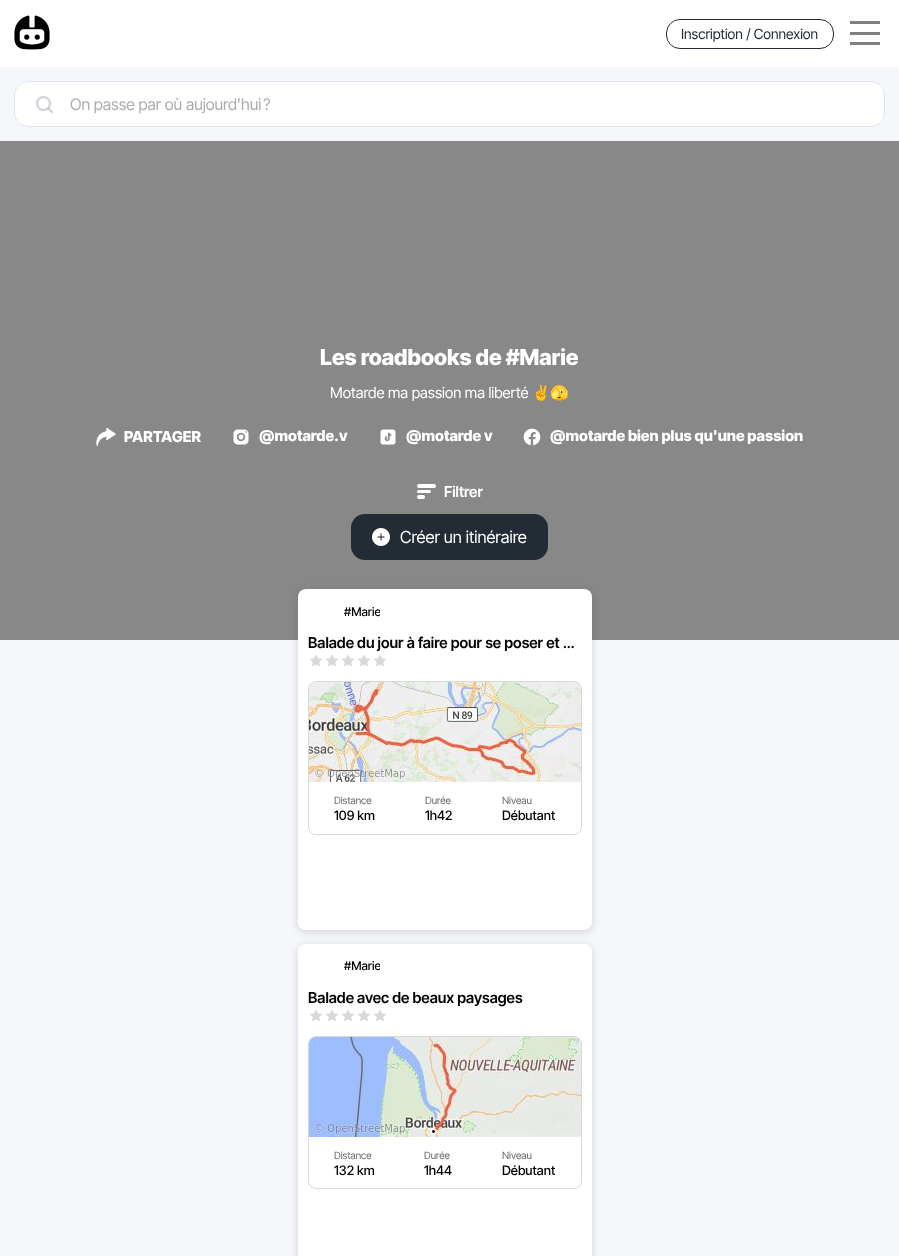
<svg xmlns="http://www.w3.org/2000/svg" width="899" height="1256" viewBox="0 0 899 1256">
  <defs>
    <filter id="blur1" x="-50%" y="-200%" width="200%" height="500%"><feGaussianBlur stdDeviation="4"/></filter>
    <clipPath id="clip1"><rect x="344" y="605" width="36" height="14"/></clipPath>
    <clipPath id="clip2"><rect x="344" y="959" width="36" height="15"/></clipPath>
  </defs>
  <rect width="100%" height="100%" fill="#ffffff"/>
  <image x="14" y="15" width="36" height="35" href="img1.png"/>
  <rect x="666.5" y="19.5" width="167" height="29" rx="13.5" fill="none" stroke="#232b35"/>
  <text x="681" y="39" font-family="Inter Tight" font-size="14" fill="#232b35">Inscription / Connexion</text>
  <rect x="850" y="21" width="30" height="3" fill="#808080"/>
  <rect x="850" y="32" width="30" height="3" fill="#808080"/>
  <rect x="850" y="42" width="30" height="3" fill="#808080"/>
  <rect x="0" y="67" width="899" height="1189" fill="#f5f7fa"/>
  <rect x="14" y="81" width="871" height="46" rx="14" fill="#ffffff"/>
  <circle cx="43.5" cy="103.5" r="6.5" fill="none" stroke="#d3d7dd" stroke-width="2.5"/>
  <path d="M52 112L48.5 108.5" fill="none" stroke="#b5bcc7" stroke-opacity="0.6" stroke-width="2.5" stroke-linecap="round" stroke-linejoin="round"/>
  <rect x="14.5" y="81.5" width="870" height="45" rx="13.5" fill="none" stroke="#dce4ef"/>
  <text x="70" y="110" font-family="Inter Tight" font-size="16" fill="#acacac">On passe par où aujourd’hui ?</text>
  <rect x="0" y="141" width="899" height="499" fill="#888888"/>
  <text x="320" y="365" font-family="Inter Tight" font-size="22" font-weight="800" fill="#ffffff">Les roadbooks de #Marie</text>
  <text x="330" y="398" font-family="Inter Tight" font-size="15" fill="#ffffff">Motarde ma passion ma liberté</text>
  <text x="532" y="398" font-family="Noto Color Emoji" font-size="15" fill="#ffffff">✌️🫣</text>
  <image x="96" y="427" width="20" height="20" href="img2.png"/>
  <text x="124" y="442" font-family="Inter Tight" font-size="15" font-weight="800" fill="#ffffff">PARTAGER</text>
  <image x="233" y="429" width="16" height="16" href="img3.png"/>
  <text x="259" y="441" font-family="Inter Tight" font-size="15" font-weight="800" fill="#ffffff">@motarde.v</text>
  <image x="380" y="429" width="16" height="16" href="img4.png"/>
  <text x="406" y="441" font-family="Inter Tight" font-size="15" font-weight="800" fill="#ffffff">@motarde v</text>
  <image x="523" y="428" width="18" height="18" href="img5.png"/>
  <text x="550" y="441" font-family="Inter Tight" font-size="15" font-weight="800" fill="#ffffff">@motarde bien plus qu'une passion</text>
  <rect x="417" y="484" width="19" height="4" rx="2" fill="#ffffff"/>
  <rect x="417" y="490" width="14" height="3" rx="1.5" fill="#ffffff"/>
  <rect x="417" y="495" width="8" height="4" rx="2" fill="#ffffff"/>
  <text x="444" y="497" font-family="Inter Tight" font-size="15" font-weight="600" fill="#ffffff">Filtrer</text>
  <rect x="351" y="514" width="197" height="46" rx="14" fill="#232b35"/>
  <image x="372" y="528" width="18" height="18" href="img6.png"/>
  <text x="400" y="543" font-family="Inter Tight" font-size="16.75" fill="#ffffff">Créer un itinéraire</text>
  <rect x="298" y="591" width="294" height="341" rx="8" fill="#000000" fill-opacity="0.15" filter="url(#blur1)"/>
  <rect x="298" y="589" width="294" height="341" rx="8" fill="#ffffff"/>
  <g clip-path="url(#clip1)">
    <text x="344" y="616" font-family="Inter Tight" font-size="12" font-weight="500" fill="#000000">#Marie</text>
  </g>
  <text x="308" y="648" font-family="Inter Tight" font-size="15" font-weight="600" fill="#000000">Balade du jour à faire pour se poser et …</text>
  <image x="309" y="654" width="78" height="13" href="img7.png"/>
  <rect x="308.5" y="681.5" width="273" height="153" rx="7.5" fill="none" stroke="#d9d9d9"/>
  <image x="309" y="682" width="272" height="100" href="img8.png"/>
  <text x="334" y="804" font-family="Inter Tight" font-size="10" fill="#666666">Distance</text>
  <text x="334" y="820" font-family="Inter Tight" font-size="13" font-weight="500" fill="#000000">109 km</text>
  <text x="425" y="804" font-family="Inter Tight" font-size="10" fill="#666666">Durée</text>
  <text x="425" y="820" font-family="Inter Tight" font-size="13" font-weight="500" fill="#000000">1h42</text>
  <text x="502" y="804" font-family="Inter Tight" font-size="10" fill="#666666">Niveau</text>
  <text x="502" y="820" font-family="Inter Tight" font-size="13" font-weight="500" fill="#000000">Débutant</text>
  <rect x="298" y="946" width="294" height="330" rx="8" fill="#000000" fill-opacity="0.15" filter="url(#blur1)"/>
  <rect x="298" y="944" width="294" height="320" rx="8" fill="#ffffff"/>
  <g clip-path="url(#clip2)">
    <text x="344" y="970" font-family="Inter Tight" font-size="12" font-weight="500" fill="#000000">#Marie</text>
  </g>
  <text x="308" y="1003" font-family="Inter Tight" font-size="15" font-weight="600" fill="#000000">Balade avec de beaux paysages</text>
  <image x="309" y="1009" width="78" height="13" href="img7.png"/>
  <rect x="308.5" y="1036.5" width="273" height="152" rx="7.5" fill="none" stroke="#d9d9d9"/>
  <image x="309" y="1037" width="272" height="100" href="img9.png"/>
  <text x="334" y="1159" font-family="Inter Tight" font-size="10" fill="#666666">Distance</text>
  <text x="334" y="1175" font-family="Inter Tight" font-size="13" font-weight="500" fill="#000000">132 km</text>
  <text x="424" y="1159" font-family="Inter Tight" font-size="10" fill="#666666">Durée</text>
  <text x="424" y="1175" font-family="Inter Tight" font-size="13" font-weight="500" fill="#000000">1h44</text>
  <text x="502" y="1159" font-family="Inter Tight" font-size="10" fill="#666666">Niveau</text>
  <text x="502" y="1175" font-family="Inter Tight" font-size="13" font-weight="500" fill="#000000">Débutant</text>
</svg>
